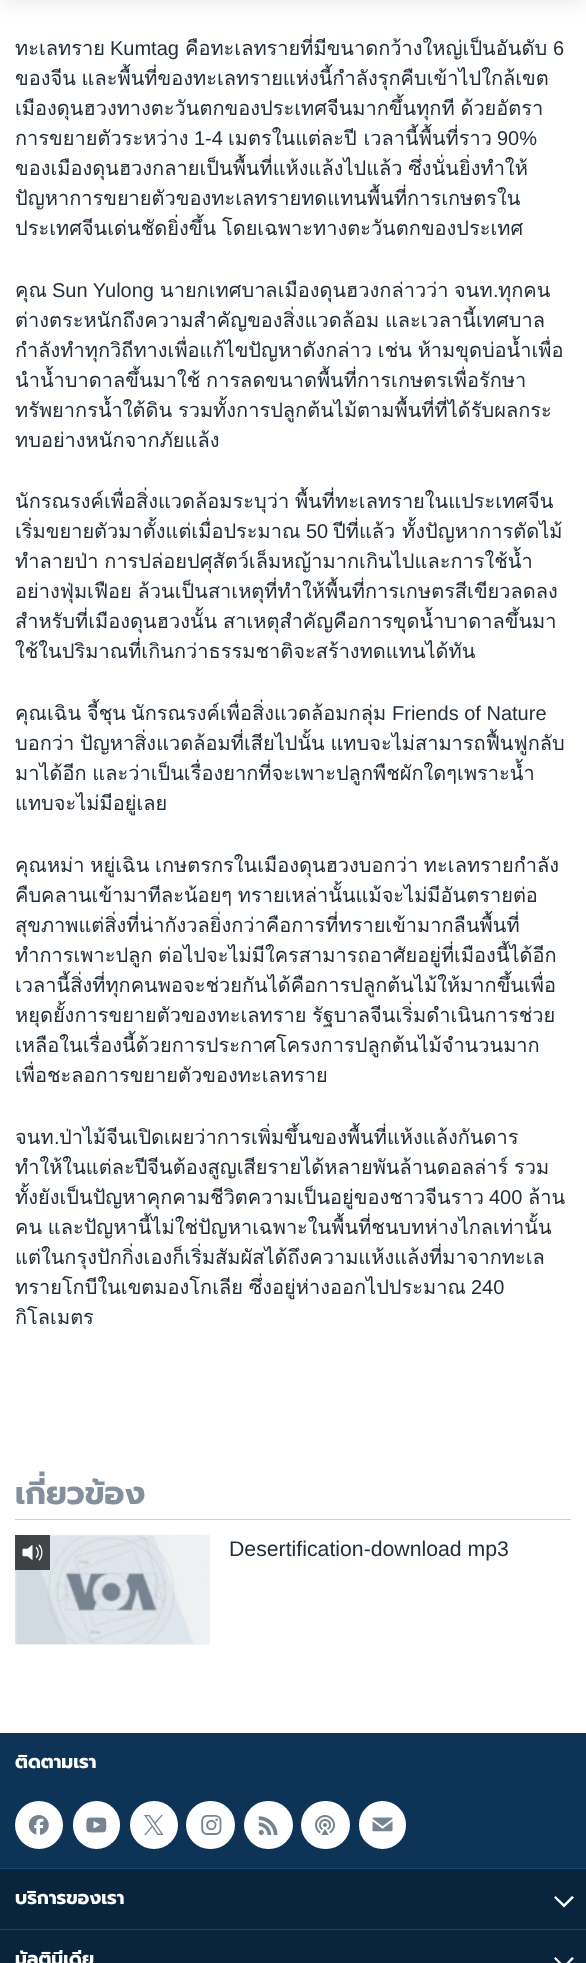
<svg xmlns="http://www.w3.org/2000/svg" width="586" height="1963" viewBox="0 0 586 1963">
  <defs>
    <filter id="blur1" x="-50%" y="-200%" width="200%" height="500%"><feGaussianBlur stdDeviation="12.5"/></filter>
  </defs>
  <rect width="100%" height="100%" fill="#ffffff"/>
  <rect x="0" y="-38" width="586" height="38" fill="#000000" fill-opacity="0.1" filter="url(#blur1)"/>
  <rect x="0" y="1869" width="586" height="60" fill="#09243d"/>
  <rect x="0" y="1929" width="586" height="1" fill="#134976"/>
  <rect x="0" y="1930" width="586" height="33" fill="#09243d"/>
  <path d="M554 1958.5L564 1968.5L574 1958.5L572 1957L564 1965.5L555.5 1957Z" fill="#ffffff"/>
  <rect x="0" y="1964" width="586" height="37" fill="#000000" fill-opacity="0.1" filter="url(#blur1)"/>
  <text x="15" y="55" font-family="Loma" font-size="20" fill="#222f3a">ทะเลทราย</text>
  <text x="110" y="55" font-family="Liberation Sans" font-size="20" fill="#222f3a">Kumtag</text>
  <text x="185" y="55" font-family="Loma" font-size="20" fill="#222f3a">คือทะเลทรายที่มีขนาดกว้างใหญ่เป็นอันดับ</text>
  <text x="553" y="55" font-family="Liberation Sans" font-size="20" fill="#222f3a">6</text>
  <text x="15" y="85" word-spacing="-1" font-family="Loma" font-size="20" fill="#222f3a">ของจีน และพื้นที่ของทะเลทรายแห่งนี้กำลังรุกคืบเข้าไปใกล้เขต</text>
  <text x="15" y="115" word-spacing="-1" font-family="Loma" font-size="20" fill="#222f3a">เมืองดุนฮวงทางตะวันตกของประเทศจีนมากขึ้นทุกที ด้วยอัตรา</text>
  <text x="15" y="145" font-family="Loma" font-size="20" fill="#222f3a">การขยายตัวระหว่าง</text>
  <text x="194" y="145" font-family="Liberation Sans" font-size="20" fill="#222f3a">1-4</text>
  <text x="228" y="145" font-family="Loma" font-size="20" fill="#222f3a">เมตรในแต่ละปี เวลานี้พื้นที่ราว</text>
  <text x="497" y="145" font-family="Liberation Sans" font-size="20" fill="#222f3a">90%</text>
  <text x="15" y="175" word-spacing="-1" font-family="Loma" font-size="20" fill="#222f3a">ของเมืองดุนฮวงกลายเป็นพื้นที่แห้งแล้งไปแล้ว ซึ่งนั่นยิ่งทำให้</text>
  <text x="15" y="205" font-family="Loma" font-size="20" fill="#222f3a">ปัญหาการขยายตัวของทะเลทรายทดแทนพื้นที่การเกษตรใน</text>
  <text x="15" y="235" word-spacing="-1" font-family="Loma" font-size="20" fill="#222f3a">ประเทศจีนเด่นชัดยิ่งขึ้น โดยเฉพาะทางตะวันตกของประเทศ</text>
  <text x="15" y="297" font-family="Loma" font-size="20" fill="#222f3a">คุณ</text>
  <text x="52" y="297" font-family="Liberation Sans" font-size="20" fill="#222f3a">Sun Yulong</text>
  <text x="160" y="297" font-family="Loma" font-size="20" fill="#222f3a">นายกเทศบาลเมืองดุนฮวงกล่าวว่า</text>
  <text x="454" y="297" font-family="Loma" font-size="20" fill="#222f3a">จนท</text>
  <text x="493" y="297" font-family="Liberation Sans" font-size="20" fill="#222f3a">.</text>
  <text x="498" y="297" font-family="Loma" font-size="20" fill="#222f3a">ทุกคน</text>
  <text x="15" y="327" word-spacing="-1" font-family="Loma" font-size="20" fill="#222f3a">ต่างตระหนักถึงความสำคัญของสิ่งแวดล้อม และเวลานี้เทศบาล</text>
  <text x="15" y="357" word-spacing="-1" font-family="Loma" font-size="20" fill="#222f3a">กำลังทำทุกวิถีทางเพื่อแก้ไขปัญหาดังกล่าว เช่น ห้ามขุดบ่อน้ำเพื่อ</text>
  <text x="15" y="387" word-spacing="-1" font-family="Loma" font-size="20" fill="#222f3a">นำน้ำบาดาลขึ้นมาใช้ การลดขนาดพื้นที่การเกษตรเพื่อรักษา</text>
  <text x="15" y="417" word-spacing="-1" font-family="Loma" font-size="20" fill="#222f3a">ทรัพยากรน้ำใต้ดิน รวมทั้งการปลูกต้นไม้ตามพื้นที่ที่ได้รับผลกระ</text>
  <text x="15" y="447" font-family="Loma" font-size="20" fill="#222f3a">ทบอย่างหนักจากภัยแล้ง</text>
  <text x="15" y="508" word-spacing="-1" font-family="Loma" font-size="20" fill="#222f3a">นักรณรงค์เพื่อสิ่งแวดล้อมระบุว่า พื้นที่ทะเลทรายในแประเทศจีน</text>
  <text x="15" y="538" font-family="Loma" font-size="20" fill="#222f3a">เริ่มขยายตัวมาตั้งแต่เมื่อประมาณ</text>
  <text x="306" y="538" font-family="Liberation Sans" font-size="20" fill="#222f3a">50</text>
  <text x="333" y="538" font-family="Loma" font-size="20" fill="#222f3a">ปีที่แล้ว ทั้งปัญหาการตัดไม้</text>
  <text x="15" y="568" word-spacing="-1" font-family="Loma" font-size="20" fill="#222f3a">ทำลายป่า การปล่อยปศุสัตว์เล็มหญ้ามากเกินไปและการใช้น้ำ</text>
  <text x="15" y="598" word-spacing="-1" font-family="Loma" font-size="20" fill="#222f3a">อย่างฟุ่มเฟือย ล้วนเป็นสาเหตุที่ทำให้พื้นที่การเกษตรสีเขียวลดลง</text>
  <text x="15" y="628" word-spacing="-1" font-family="Loma" font-size="20" fill="#222f3a">สำหรับที่เมืองดุนฮวงนั้น สาเหตุสำคัญคือการขุดน้ำบาดาลขึ้นมา</text>
  <text x="15" y="658" font-family="Loma" font-size="20" fill="#222f3a">ใช้ในปริมาณที่เกินกว่าธรรมชาติจะสร้างทดแทนได้ทัน</text>
  <text x="15" y="720" font-family="Loma" font-size="20" fill="#222f3a">คุณเฉิน</text>
  <text x="87" y="720" font-family="Loma" font-size="20" fill="#222f3a">จี้ชุน</text>
  <text x="131" y="720" font-family="Loma" font-size="20" fill="#222f3a">นักรณรงค์เพื่อสิ่งแวดล้อมกลุ่ม</text>
  <text x="392" y="720" font-family="Liberation Sans" font-size="20" fill="#222f3a">Friends of Nature</text>
  <text x="15" y="750" word-spacing="-1" font-family="Loma" font-size="20" fill="#222f3a">บอกว่า ปัญหาสิ่งแวดล้อมที่เสียไปนั้น แทบจะไม่สามารถฟื้นฟูกลับ</text>
  <text x="15" y="780" word-spacing="-1" font-family="Loma" font-size="20" fill="#222f3a">มาได้อีก และว่าเป็นเรื่องยากที่จะเพาะปลูกพืชผักใดๆเพราะน้ำ</text>
  <text x="15" y="810" font-family="Loma" font-size="20" fill="#222f3a">แทบจะไม่มีอยู่เลย</text>
  <text x="15" y="872" word-spacing="-1" font-family="Loma" font-size="20" fill="#222f3a">คุณหม่า หยู่เฉิน เกษตรกรในเมืองดุนฮวงบอกว่า ทะเลทรายกำลัง</text>
  <text x="15" y="902" word-spacing="-1" font-family="Loma" font-size="20" fill="#222f3a">คืบคลานเข้ามาทีละน้อยๆ ทรายเหล่านั้นแม้จะไม่มีอันตรายต่อ</text>
  <text x="15" y="932" font-family="Loma" font-size="20" fill="#222f3a">สุขภาพแต่สิ่งที่น่ากังวลยิ่งกว่าคือการที่ทรายเข้ามากลืนพื้นที่</text>
  <text x="15" y="962" word-spacing="-1" font-family="Loma" font-size="20" fill="#222f3a">ทำการเพาะปลูก ต่อไปจะไม่มีใครสามารถอาศัยอยู่ที่เมืองนี้ได้อีก</text>
  <text x="15" y="992" font-family="Loma" font-size="20" fill="#222f3a">เวลานี้สิ่งที่ทุกคนพอจะช่วยกันได้คือการปลูกต้นไม้ให้มากขึ้นเพื่อ</text>
  <text x="15" y="1022" word-spacing="-1" font-family="Loma" font-size="20" fill="#222f3a">หยุดยั้งการขยายตัวของทะเลทราย รัฐบาลจีนเริ่มดำเนินการช่วย</text>
  <text x="15" y="1052" font-family="Loma" font-size="20" fill="#222f3a">เหลือในเรื่องนี้ด้วยการประกาศโครงการปลูกต้นไม้จำนวนมาก</text>
  <text x="15" y="1082" font-family="Loma" font-size="20" fill="#222f3a">เพื่อชะลอการขยายตัวของทะเลทราย</text>
  <text x="15" y="1144" font-family="Loma" font-size="20" fill="#222f3a">จนท</text>
  <text x="54" y="1144" font-family="Liberation Sans" font-size="20" fill="#222f3a">.</text>
  <text x="59" y="1144" font-family="Loma" font-size="20" fill="#222f3a">ป่าไม้จีนเปิดเผยว่าการเพิ่มขึ้นของพื้นที่แห้งแล้งกันดาร</text>
  <text x="15" y="1174" word-spacing="-1" font-family="Loma" font-size="20" fill="#222f3a">ทำให้ในแต่ละปีจีนต้องสูญเสียรายได้หลายพันล้านดอลล่าร์ รวม</text>
  <text x="15" y="1204" font-family="Loma" font-size="20" fill="#222f3a">ทั้งยังเป็นปัญหาคุกคามชีวิตความเป็นอยู่ของชาวจีนราว</text>
  <text x="489" y="1204" font-family="Liberation Sans" font-size="20" fill="#222f3a">400</text>
  <text x="528" y="1204" font-family="Loma" font-size="20" fill="#222f3a">ล้าน</text>
  <text x="15" y="1234" word-spacing="-1" font-family="Loma" font-size="20" fill="#222f3a">คน และปัญหานี้ไม่ใช่ปัญหาเฉพาะในพื้นที่ชนบทห่างไกลเท่านั้น</text>
  <text x="15" y="1264" font-family="Loma" font-size="20" fill="#222f3a">แต่ในกรุงปักกิ่งเองก็เริ่มสัมผัสได้ถึงความแห้งแล้งที่มาจากทะเล</text>
  <text x="15" y="1294" word-spacing="-1" font-family="Loma" font-size="20" fill="#222f3a">ทรายโกบีในเขตมองโกเลีย ซึ่งอยู่ห่างออกไปประมาณ</text>
  <text x="471" y="1294" font-family="Liberation Sans" font-size="20" fill="#222f3a">240</text>
  <text x="15" y="1324" font-family="Loma" font-size="20" fill="#222f3a">กิโลเมตร</text>
  <rect x="15" y="1519" width="556" height="1" fill="#cbd1d6"/>
  <text x="15" y="1504" font-family="Prompt" font-size="32" font-weight="bold" fill="#84919d">เกี่ยวข้อง</text>
  <rect x="15" y="1535" width="195" height="110" fill="#f6f7f8"/>
  <image x="15" y="1534" width="195" height="111" href="img1.png"/>
  <rect x="15" y="1535" width="35" height="35" fill="#000000" fill-opacity="0.7"/>
  <image x="22" y="1544" width="21" height="17" href="img2.png"/>
  <text x="229" y="1556" font-family="Liberation Sans" font-size="21.25" fill="#222f3a">Desertification-download mp3</text>
  <rect x="0" y="1733" width="586" height="135" fill="#0d3456"/>
  <text x="15" y="1768" font-family="Prompt" font-size="18.5" font-weight="bold" fill="#ffffff">ติดตามเรา</text>
  <circle cx="39" cy="1825" r="24" fill="#ffffff"/>
  <image x="28" y="1815" width="21" height="20" href="img3.png"/>
  <rect x="73" y="1801" width="47" height="48" rx="23.5" fill="#ffffff"/>
  <image x="86" y="1817" width="21" height="16" href="img4.png"/>
  <circle cx="154" cy="1825" r="24" fill="#ffffff"/>
  <image x="144" y="1815" width="20" height="20" href="img5.png"/>
  <rect x="186" y="1801" width="49" height="48" rx="24" fill="#ffffff"/>
  <image x="201" y="1815" width="21" height="20" href="img6.png"/>
  <rect x="244" y="1801" width="49" height="48" rx="24" fill="#ffffff"/>
  <image x="258" y="1816" width="20" height="19" href="img7.png"/>
  <rect x="301" y="1801" width="49" height="48" rx="24" fill="#ffffff"/>
  <image x="315" y="1815" width="20" height="20" href="img8.png"/>
  <rect x="359" y="1801" width="47" height="48" rx="23.5" fill="#ffffff"/>
  <image x="372" y="1817" width="21" height="15" href="img9.png"/>
  <rect x="0" y="1868" width="586" height="1" fill="#134976"/>
  <text x="15" y="1904" font-family="Prompt" font-size="18.5" font-weight="bold" fill="#ffffff">บริการของเรา</text>
  <path d="M554 1897.5L564 1907.5L574 1897.5L572 1896L564 1904L555.5 1896Z" fill="#ffffff"/>
  <text x="15" y="1965" font-family="Prompt" font-size="18.5" font-weight="bold" fill="#ffffff">มัลติมีเดีย</text>
</svg>
